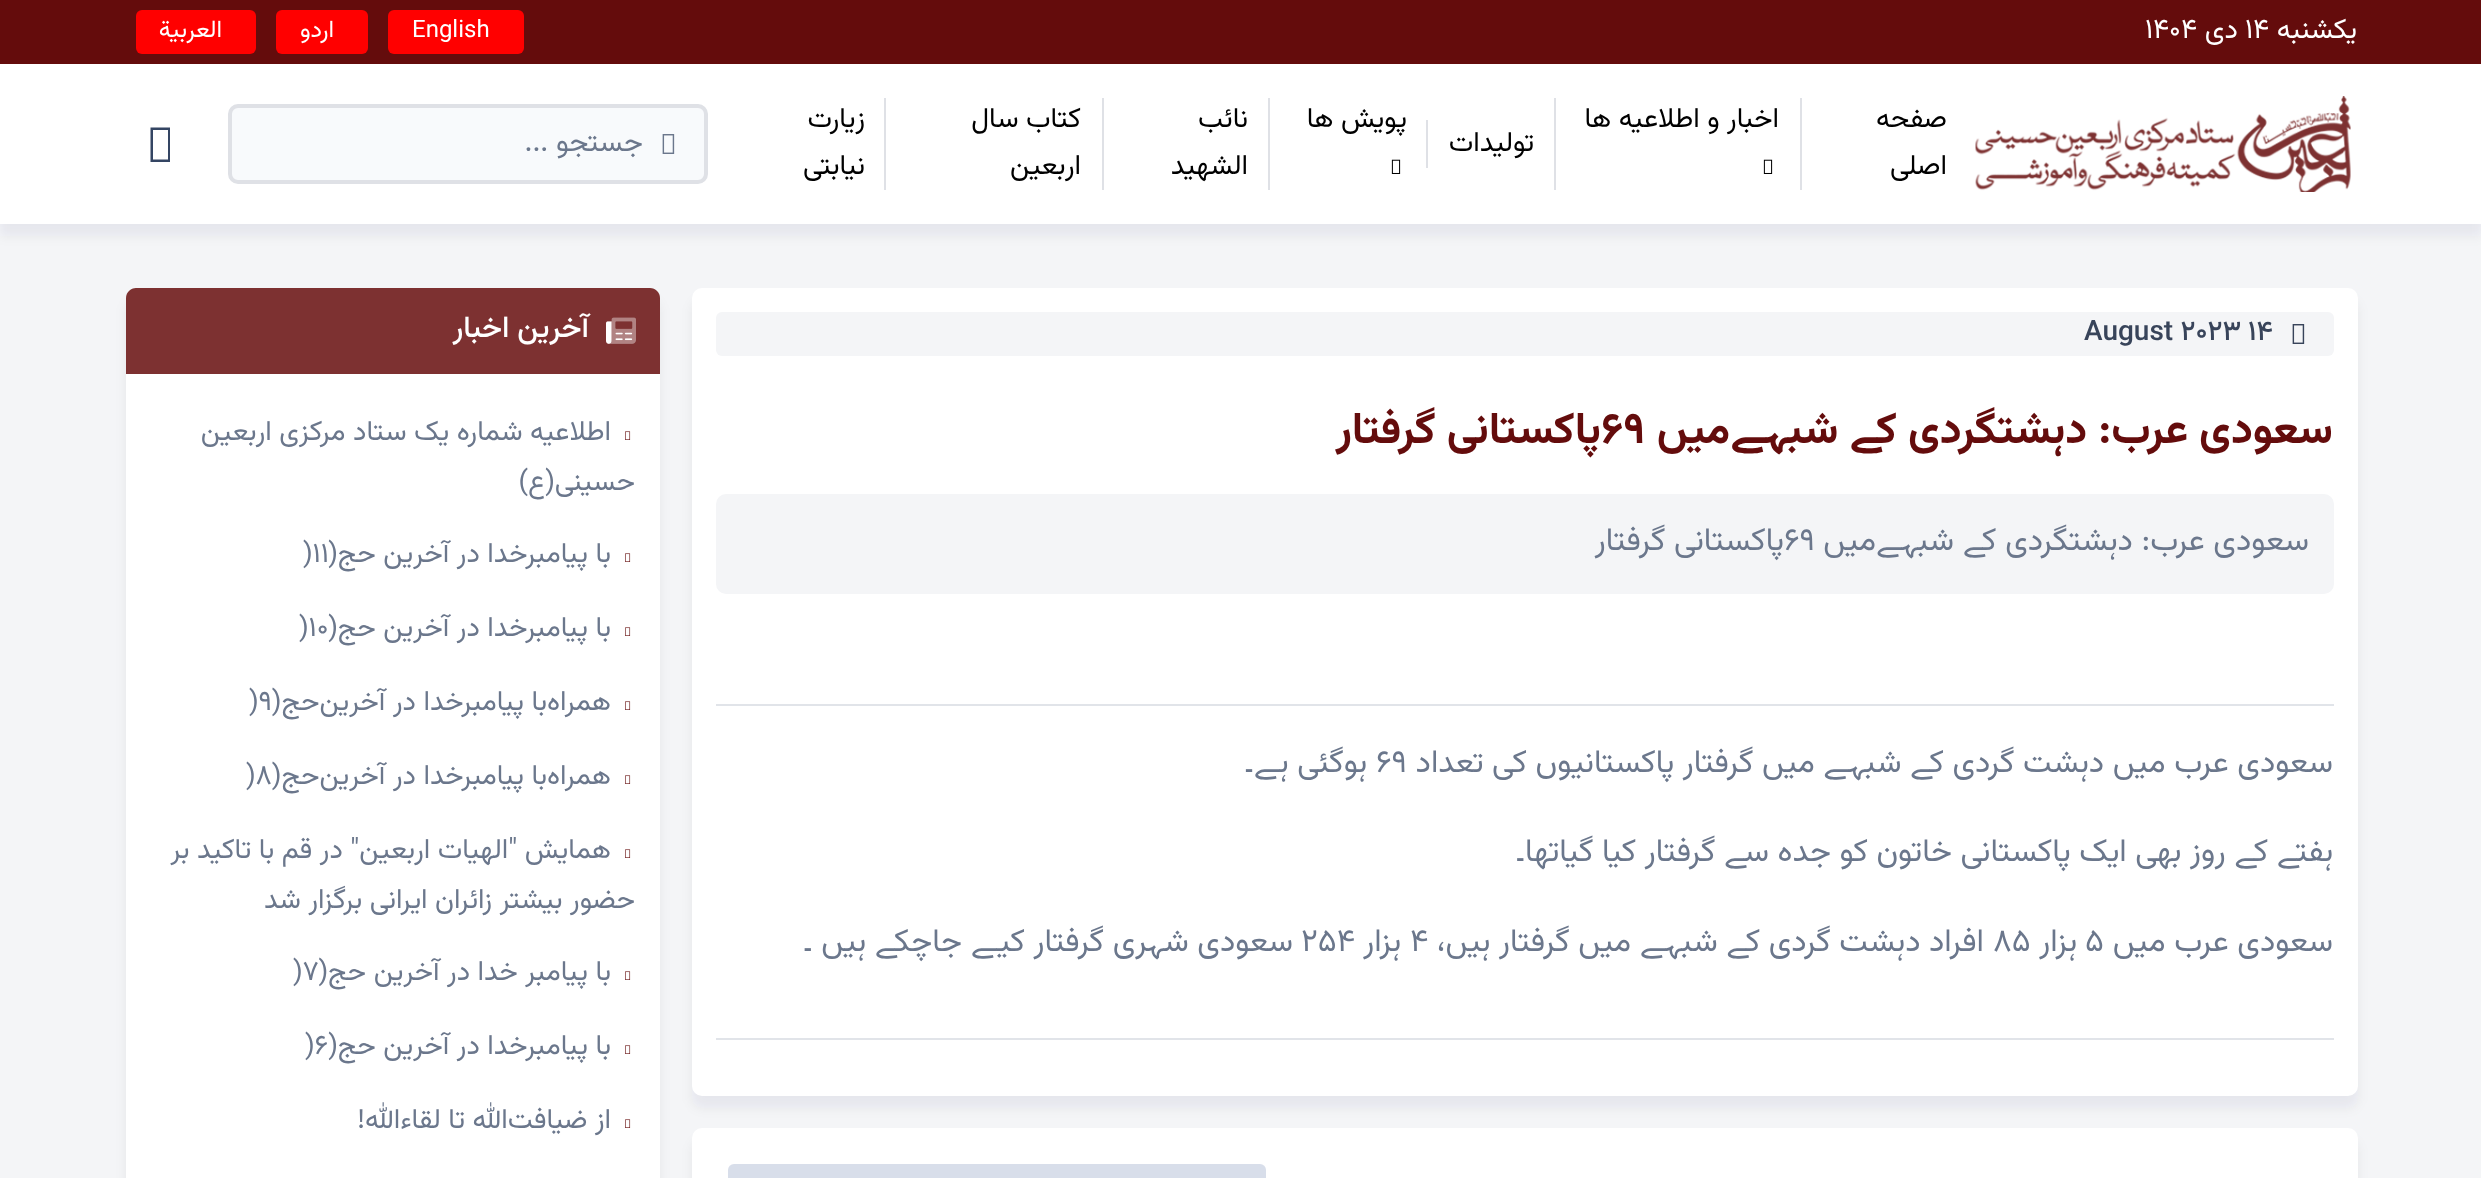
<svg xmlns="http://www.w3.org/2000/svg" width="2481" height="1178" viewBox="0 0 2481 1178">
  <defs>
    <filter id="blur1" x="-50%" y="-200%" width="200%" height="500%"><feGaussianBlur stdDeviation="6"/></filter>
  </defs>
  <rect width="100%" height="100%" fill="#f4f5f7"/>
  <rect x="0" y="0" width="2481" height="64" fill="#640c0c"/>
  <text x="2357" y="38" font-family="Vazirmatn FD" font-size="28" direction="rtl" fill="#ffffff">یکشنبه</text>
  <text x="2245" y="38" font-family="Vazirmatn FD" font-size="28" fill="#ffffff">14</text>
  <text x="2238" y="38" font-family="Vazirmatn FD" font-size="28" direction="rtl" fill="#ffffff">دی</text>
  <text x="2145" y="38" font-family="Vazirmatn FD" font-size="28" fill="#ffffff">1404</text>
  <rect x="388" y="10" width="136" height="44" rx="6" fill="#ff0000"/>
  <text x="412" y="37" font-family="Vazirmatn FD" font-size="24" fill="#ffffff">English</text>
  <rect x="276" y="10" width="92" height="44" rx="6" fill="#ff0000"/>
  <text x="334" y="37" font-family="Vazirmatn FD" font-size="24" direction="rtl" fill="#ffffff">اردو</text>
  <rect x="136" y="10" width="120" height="44" rx="6" fill="#ff0000"/>
  <text x="222" y="37" font-family="Vazirmatn FD" font-size="24" direction="rtl" fill="#ffffff">العربية</text>
  <rect x="0" y="76" width="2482" height="160" fill="#091e42" fill-opacity="0.06" filter="url(#blur1)"/>
  <rect x="0" y="64" width="2481" height="160" fill="#ffffff"/>
  <image x="1975" y="96" width="376" height="96" href="img1.png"/>
  <rect x="1800" y="98" width="2" height="92" fill="#dfe1e6"/>
  <text x="1947" y="127" font-family="Vazirmatn FD" font-size="28" direction="rtl" fill="#000000">صفحه</text>
  <text x="1947" y="174" font-family="Vazirmatn FD" font-size="28" direction="rtl" fill="#000000">اصلی</text>
  <rect x="1554" y="98" width="2" height="92" fill="#dfe1e6"/>
  <text x="1779" y="127" font-family="Vazirmatn FD" font-size="28" direction="rtl" fill="#000000">اخبار و اطلاعیه ها</text>
  <image x="1763" y="159" width="10" height="15" href="img2.png"/>
  <rect x="1426" y="120" width="2" height="48" fill="#dfe1e6"/>
  <text x="1534" y="151" font-family="Vazirmatn FD" font-size="28" direction="rtl" fill="#000000">تولیدات</text>
  <rect x="1268" y="98" width="2" height="92" fill="#dfe1e6"/>
  <text x="1407" y="127" font-family="Vazirmatn FD" font-size="28" direction="rtl" fill="#000000">پویش ها</text>
  <image x="1391" y="159" width="10" height="15" href="img2.png"/>
  <rect x="1102" y="98" width="2" height="92" fill="#dfe1e6"/>
  <text x="1248" y="127" font-family="Vazirmatn FD" font-size="28" direction="rtl" fill="#000000">نائب</text>
  <text x="1248" y="174" font-family="Vazirmatn FD" font-size="28" direction="rtl" fill="#000000">الشهید</text>
  <rect x="884" y="98" width="2" height="92" fill="#dfe1e6"/>
  <text x="1081" y="127" font-family="Vazirmatn FD" font-size="28" direction="rtl" fill="#000000">کتاب سال</text>
  <text x="1081" y="174" font-family="Vazirmatn FD" font-size="28" direction="rtl" fill="#000000">اربعین</text>
  <text x="865" y="127" font-family="Vazirmatn FD" font-size="28" direction="rtl" fill="#000000">زیارت</text>
  <text x="865" y="174" font-family="Vazirmatn FD" font-size="28" direction="rtl" fill="#000000">نیابتی</text>
  <rect x="230" y="106" width="476" height="76" rx="8" fill="#f8fafc" stroke="#dfe1e6" stroke-width="4"/>
  <image x="662" y="134" width="13" height="20" href="img3.png"/>
  <text x="643" y="151" font-family="Vazirmatn FD" font-size="29" direction="rtl" fill="#6b778c">جستجو ...</text>
  <path d="M150.5 162V127.5H170V162ZM153 159.5H168V130H153Z" fill="#344563"/>
  <rect x="692" y="300" width="1666" height="808" rx="10" fill="#091e42" fill-opacity="0.06" filter="url(#blur1)"/>
  <rect x="692" y="288" width="1666" height="808" rx="10" fill="#ffffff"/>
  <rect x="716" y="312" width="1618" height="44" rx="6" fill="#f4f5f7"/>
  <image x="2292" y="324" width="13" height="20" href="img4.png"/>
  <text x="2248" y="340" font-family="Vazirmatn FD" font-size="28" font-weight="500" fill="#38445a">14</text>
  <text x="2084" y="340" font-family="Vazirmatn FD" font-size="28" font-weight="500" fill="#38445a">August 2023</text>
  <text x="2333" y="443" font-family="Vazirmatn FD" font-size="44" font-weight="bold" direction="rtl" fill="#640c0c">سعودی عرب: دہشتگردی کے شبہےمیں</text>
  <text x="1601" y="443" font-family="Vazirmatn FD" font-size="44" font-weight="bold" fill="#640c0c">69</text>
  <text x="1601" y="443" font-family="Vazirmatn FD" font-size="44" font-weight="bold" direction="rtl" fill="#640c0c">پاکستانی گرفتار</text>
  <rect x="716" y="494" width="1618" height="100" rx="10" fill="#f4f5f7"/>
  <text x="2309" y="550" font-family="Vazirmatn FD" font-size="32" direction="rtl" fill="#6b778c">سعودی عرب: دہشتگردی کے شبہےمیں</text>
  <text x="1784" y="550" font-family="Vazirmatn FD" font-size="32" fill="#6b778c">69</text>
  <text x="1784" y="550" font-family="Vazirmatn FD" font-size="32" direction="rtl" fill="#6b778c">پاکستانی گرفتار</text>
  <rect x="716" y="704" width="1618" height="2" fill="#e1e4e9"/>
  <text x="2333" y="772" font-family="Vazirmatn FD" font-size="32" direction="rtl" fill="#6b778c">سعودی عرب میں دہشت گردی کے شبہے میں گرفتار پاکستانیوں کی تعداد</text>
  <text x="1376" y="772" font-family="Vazirmatn FD" font-size="32" fill="#6b778c">69</text>
  <text x="1367" y="772" font-family="Vazirmatn FD" font-size="32" direction="rtl" fill="#6b778c">ہوگئی ہے۔</text>
  <text x="2333" y="861" font-family="Vazirmatn FD" font-size="32" direction="rtl" fill="#6b778c">ہفتے کے روز بھی ایک پاکستانی خاتون کو جدہ سے گرفتار کیا گیاتھا۔</text>
  <text x="2333" y="951" font-family="Vazirmatn FD" font-size="32" direction="rtl" fill="#6b778c">سعودی عرب میں</text>
  <text x="2085" y="951" font-family="Vazirmatn FD" font-size="32" fill="#6b778c">5</text>
  <text x="2077" y="951" font-family="Vazirmatn FD" font-size="32" direction="rtl" fill="#6b778c">ہزار</text>
  <text x="1993" y="951" font-family="Vazirmatn FD" font-size="32" fill="#6b778c">85</text>
  <text x="1984" y="951" font-family="Vazirmatn FD" font-size="32" direction="rtl" fill="#6b778c">افراد دہشت گردی کے شبہے میں گرفتار ہیں،</text>
  <text x="1410" y="951" font-family="Vazirmatn FD" font-size="32" fill="#6b778c">4</text>
  <text x="1401" y="951" font-family="Vazirmatn FD" font-size="32" direction="rtl" fill="#6b778c">ہزار</text>
  <text x="1301" y="951" font-family="Vazirmatn FD" font-size="32" fill="#6b778c">254</text>
  <text x="1293" y="951" font-family="Vazirmatn FD" font-size="32" direction="rtl" fill="#6b778c">سعودی شہری گرفتار کیے جاچکے ہیں ۔</text>
  <rect x="716" y="1038" width="1618" height="2" fill="#e1e4e9"/>
  <rect x="692" y="1140" width="1666" height="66" rx="10" fill="#091e42" fill-opacity="0.06" filter="url(#blur1)"/>
  <rect x="692" y="1128" width="1666" height="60" rx="10" fill="#ffffff"/>
  <rect x="728" y="1164" width="538" height="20" rx="6" fill="#d8deea"/>
  <rect x="126" y="300" width="534" height="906" rx="10" fill="#091e42" fill-opacity="0.06" filter="url(#blur1)"/>
  <rect x="126" y="288" width="534" height="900" rx="10" fill="#ffffff"/>
  <path d="M136 288H650C655.5 288 660 292.5 660 298V374H126V298C126 292.5 130.5 288 136 288Z" fill="#7d3131"/>
  <image x="606" y="321" width="27" height="23" href="img6.png"/>
  <image x="610" y="317" width="26" height="27" href="img5.png"/>
  <text x="589" y="337" font-family="Vazirmatn FD" font-size="30" font-weight="500" direction="rtl" fill="#ffffff">آخرین اخبار</text>
  <image x="625" y="431" width="6" height="9" href="img7.png"/>
  <text x="611" y="440" font-family="Vazirmatn FD" font-size="28" direction="rtl" fill="#6b778c">اطلاعیه شماره یک ستاد مرکزی اربعین</text>
  <text x="635" y="490" font-family="Vazirmatn FD" font-size="28" direction="rtl" fill="#6b778c">حسینی(ع)</text>
  <image x="625" y="553" width="6" height="9" href="img7.png"/>
  <text x="611" y="562" font-family="Vazirmatn FD" font-size="28" direction="rtl" fill="#6b778c">با پیامبرخدا در آخرین حج(</text>
  <text x="303" y="562" font-family="Vazirmatn FD" font-size="28" fill="#6b778c">)۱۱</text>
  <image x="625" y="627" width="6" height="9" href="img7.png"/>
  <text x="611" y="636" font-family="Vazirmatn FD" font-size="28" direction="rtl" fill="#6b778c">با پیامبرخدا در آخرین حج(</text>
  <text x="299" y="636" font-family="Vazirmatn FD" font-size="28" fill="#6b778c">)۱۰</text>
  <image x="625" y="701" width="6" height="9" href="img7.png"/>
  <text x="611" y="710" font-family="Vazirmatn FD" font-size="28" direction="rtl" fill="#6b778c">همراه‌با پیامبرخدا در آخرین‌حج(</text>
  <text x="249" y="710" font-family="Vazirmatn FD" font-size="28" fill="#6b778c">)۹</text>
  <image x="625" y="775" width="6" height="9" href="img7.png"/>
  <text x="611" y="784" font-family="Vazirmatn FD" font-size="28" direction="rtl" fill="#6b778c">همراه‌با پیامبرخدا در آخرین‌حج(</text>
  <text x="246" y="784" font-family="Vazirmatn FD" font-size="28" fill="#6b778c">)۸</text>
  <image x="625" y="849" width="6" height="9" href="img7.png"/>
  <text x="611" y="858" font-family="Vazirmatn FD" font-size="28" direction="rtl" fill="#6b778c">همایش "الهیات اربعین" در قم با تاکید بر</text>
  <text x="635" y="908" font-family="Vazirmatn FD" font-size="28" direction="rtl" fill="#6b778c">حضور بیشتر زائران ایرانی برگزار شد</text>
  <image x="625" y="971" width="6" height="9" href="img7.png"/>
  <text x="611" y="980" font-family="Vazirmatn FD" font-size="28" direction="rtl" fill="#6b778c">با پیامبر خدا در آخرین حج(</text>
  <text x="293" y="980" font-family="Vazirmatn FD" font-size="28" fill="#6b778c">)۷</text>
  <image x="625" y="1045" width="6" height="9" href="img7.png"/>
  <text x="611" y="1054" font-family="Vazirmatn FD" font-size="28" direction="rtl" fill="#6b778c">با پیامبرخدا در آخرین حج(</text>
  <text x="305" y="1054" font-family="Vazirmatn FD" font-size="28" fill="#6b778c">)۶</text>
  <image x="625" y="1119" width="6" height="9" href="img7.png"/>
  <text x="611" y="1128" font-family="Vazirmatn FD" font-size="28" direction="rtl" fill="#6b778c">از ضیافت‌الله تا لقاء‌الله!</text>
</svg>
